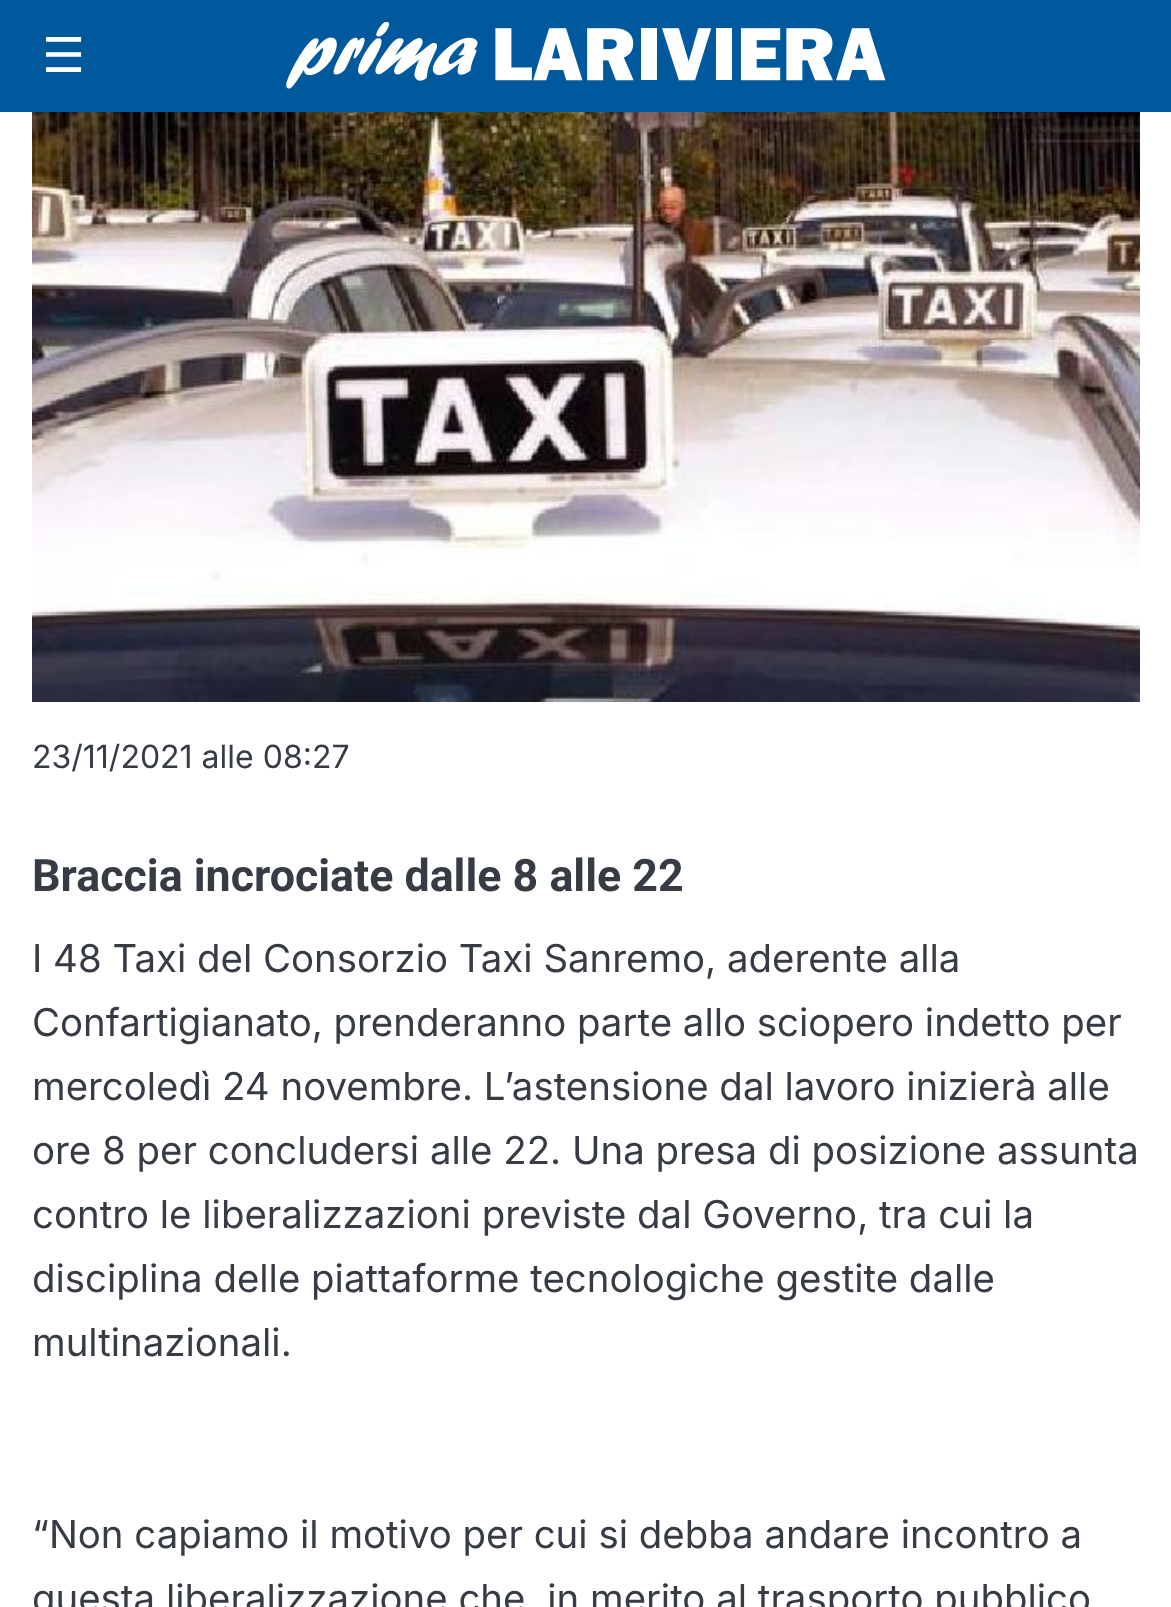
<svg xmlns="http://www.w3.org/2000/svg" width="1171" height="1607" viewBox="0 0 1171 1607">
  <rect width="100%" height="100%" fill="#ffffff"/>
  <rect x="0" y="0" width="1171" height="112" fill="#00599c"/>
  <text x="42" y="72" font-family="DejaVu Sans" font-size="48" fill="#ffffff">☰</text>
  <image x="286" y="22" width="600" height="67" href="img1.png"/>
  <image x="32" y="112" width="1108" height="590" href="img2.png"/>
  <text x="32" y="768" font-family="Inter" font-size="32" fill="#373c44">23/11/2021 alle 08:27</text>
  <text x="32" y="891" font-family="Roboto" font-size="44.75" font-weight="bold" fill="#373c44">Braccia incrociate dalle 8 alle 22</text>
  <text x="32" y="972" font-family="Inter" font-size="38.4" fill="#373c44">I 48 Taxi del Consorzio Taxi Sanremo, aderente alla</text>
  <text x="32" y="1036" font-family="Inter" font-size="38.4" fill="#373c44">Confartigianato, prenderanno parte allo sciopero indetto per</text>
  <text x="32" y="1100" font-family="Inter" font-size="38.4" fill="#373c44">mercoledì 24 novembre. L’astensione dal lavoro inizierà alle</text>
  <text x="32" y="1164" font-family="Inter" font-size="38.4" fill="#373c44">ore 8 per concludersi alle 22. Una presa di posizione assunta</text>
  <text x="32" y="1228" font-family="Inter" font-size="38.4" fill="#373c44">contro le liberalizzazioni previste dal Governo, tra cui la</text>
  <text x="32" y="1292" font-family="Inter" font-size="38.4" fill="#373c44">disciplina delle piattaforme tecnologiche gestite dalle</text>
  <text x="32" y="1356" font-family="Inter" font-size="38.4" fill="#373c44">multinazionali.</text>
  <text x="32" y="1548" font-family="Inter" font-size="38.4" fill="#373c44">“Non capiamo il motivo per cui si debba andare incontro a</text>
  <text x="32" y="1612" font-family="Inter" font-size="38.4" fill="#373c44">questa liberalizzazione che, in merito al trasporto pubblico</text>
</svg>
